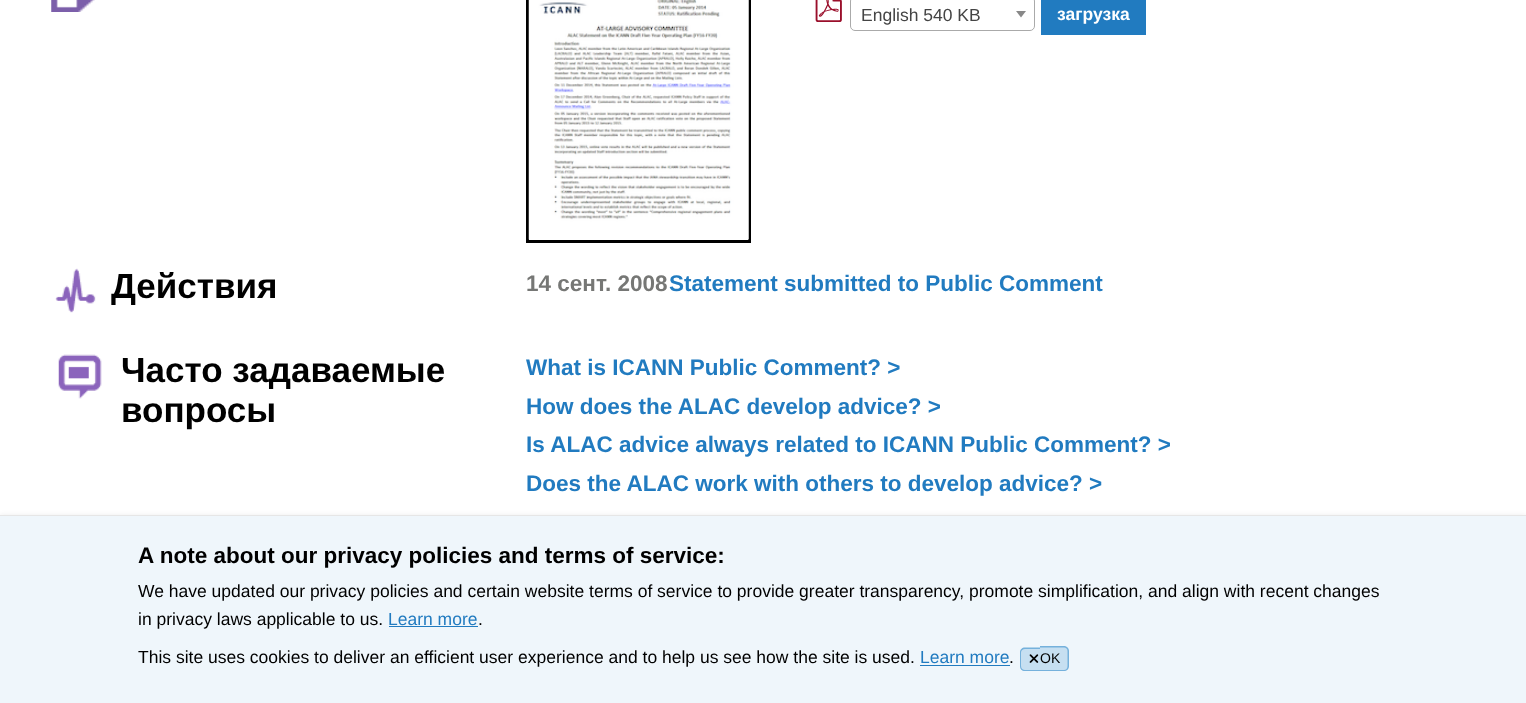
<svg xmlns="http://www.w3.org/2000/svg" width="1526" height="703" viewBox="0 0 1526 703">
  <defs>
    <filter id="blur1" x="-50%" y="-200%" width="200%" height="500%"><feGaussianBlur stdDeviation="2"/></filter>
  </defs>
  <rect width="100%" height="100%" fill="#ffffff"/>
  <image x="51" y="0" width="44" height="12" href="img1.png"/>
  <rect x="527.5" y="-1.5" width="222" height="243" fill="none" stroke="#000000" stroke-width="3"/>
  <image x="528" y="0" width="221" height="240" href="img2.png"/>
  <image x="815" y="0" width="27" height="22" href="img3.png"/>
  <rect x="850.5" y="-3.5" width="184" height="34" rx="4.5" fill="none" stroke="#aaaaaa"/>
  <text x="861" y="21" font-family="Liberation Sans" font-size="17.5" fill="#444444">English 540 KB</text>
  <path d="M1016 11H1026L1021 17.5Z" fill="#888888"/>
  <rect x="1041" y="0" width="105" height="35" fill="#217bc0"/>
  <text x="1057" y="20" font-family="Liberation Sans" font-size="17.5" font-weight="bold" fill="#ffffff">загрузка</text>
  <image x="55" y="268" width="41" height="45" href="img4.png"/>
  <text x="111" y="298" font-family="Liberation Sans" font-size="35" font-weight="bold" fill="#000000">Действия</text>
  <text x="526" y="291" font-family="Liberation Sans" font-size="22.5" font-weight="bold" fill="#767775">14 сент. 2008</text>
  <text x="669" y="291" font-family="Liberation Sans" font-size="22.5" font-weight="bold" fill="#217bc0">Statement submitted to Public Comment</text>
  <image x="58" y="354" width="44" height="45" href="img5.png"/>
  <text x="121" y="382" font-family="Liberation Sans" font-size="35" font-weight="bold" fill="#000000">Часто задаваемые</text>
  <text x="121" y="422" font-family="Liberation Sans" font-size="35" font-weight="bold" fill="#000000">вопросы</text>
  <text x="526" y="375" font-family="Liberation Sans" font-size="22.5" font-weight="bold" fill="#217bc0">What is ICANN Public Comment? &gt;</text>
  <text x="526" y="414" font-family="Liberation Sans" font-size="22.5" font-weight="bold" fill="#217bc0">How does the ALAC develop advice? &gt;</text>
  <text x="526" y="452" font-family="Liberation Sans" font-size="22.5" font-weight="bold" fill="#217bc0">Is ALAC advice always related to ICANN Public Comment? &gt;</text>
  <text x="526" y="491" font-family="Liberation Sans" font-size="22.5" font-weight="bold" fill="#217bc0">Does the ALAC work with others to develop advice? &gt;</text>
  <rect x="0" y="514" width="1526" height="189" fill="#000000" fill-opacity="0.05" filter="url(#blur1)"/>
  <rect x="0" y="516" width="1526" height="187" fill="#eff6fb"/>
  <rect x="0" y="515" width="1526" height="1" fill="#e6e6e6"/>
  <text x="138" y="563" font-family="Liberation Sans" font-size="22.5" font-weight="bold" fill="#000000">A note about our privacy policies and terms of service:</text>
  <text x="138" y="597" font-family="Liberation Sans" font-size="17.5" fill="#000000">We have updated our privacy policies and certain website terms of service to provide greater transparency, promote simplification, and align with recent changes</text>
  <text x="138" y="625" font-family="Liberation Sans" font-size="17.5" fill="#000000">in privacy laws applicable to us.</text>
  <text x="388" y="625" font-family="Liberation Sans" font-size="17.5" fill="#217bc0">Learn more</text>
  <rect x="389" y="626" width="89" height="1" fill="#217bc0"/>
  <text x="478" y="625" font-family="Liberation Sans" font-size="17.5" fill="#000000">.</text>
  <text x="138" y="663" font-family="Liberation Sans" font-size="17.5" fill="#000000">This site uses cookies to deliver an efficient user experience and to help us see how the site is used.</text>
  <text x="920" y="663" font-family="Liberation Sans" font-size="17.5" fill="#217bc0">Learn more</text>
  <rect x="920" y="665" width="90" height="1" fill="#217bc0"/>
  <text x="1009" y="663" font-family="Liberation Sans" font-size="17.5" fill="#000000">.</text>
  <path d="M1025 648H1040V671H1025C1022 671 1020 669 1020 666V653C1020 650 1022 648 1025 648Z" fill="#c6dff1"/>
  <path d="M1025 647.5H1040V671H1025C1022 671 1020 669 1020 666V652.5C1020 649.5 1022 647.5 1025 647.5ZM1025 649H1040V670H1025C1023 670 1021 668.5 1021 666V652.5C1021 650.5 1023 649 1025 649Z" fill="#75b1dc" fill-rule="evenodd"/>
  <path d="M1040 646H1064C1067 646 1069 648 1069 651V666C1069 669 1067 671 1064 671H1040Z" fill="#c6dff1"/>
  <path d="M1040 646H1064C1066.5 646 1069 648.5 1069 651V666C1069 669 1066.5 671 1064 671H1040ZM1040 647.5H1064C1066 647.5 1067.5 649 1067.5 651V666C1067.5 668.5 1066 670 1064 670H1040Z" fill="#75b1dc" fill-rule="evenodd"/>
  <image x="1029" y="654" width="10" height="9" href="img6.png"/>
  <text x="1040" y="663" font-family="Liberation Sans" font-size="14" fill="#000000">OK</text>
</svg>
